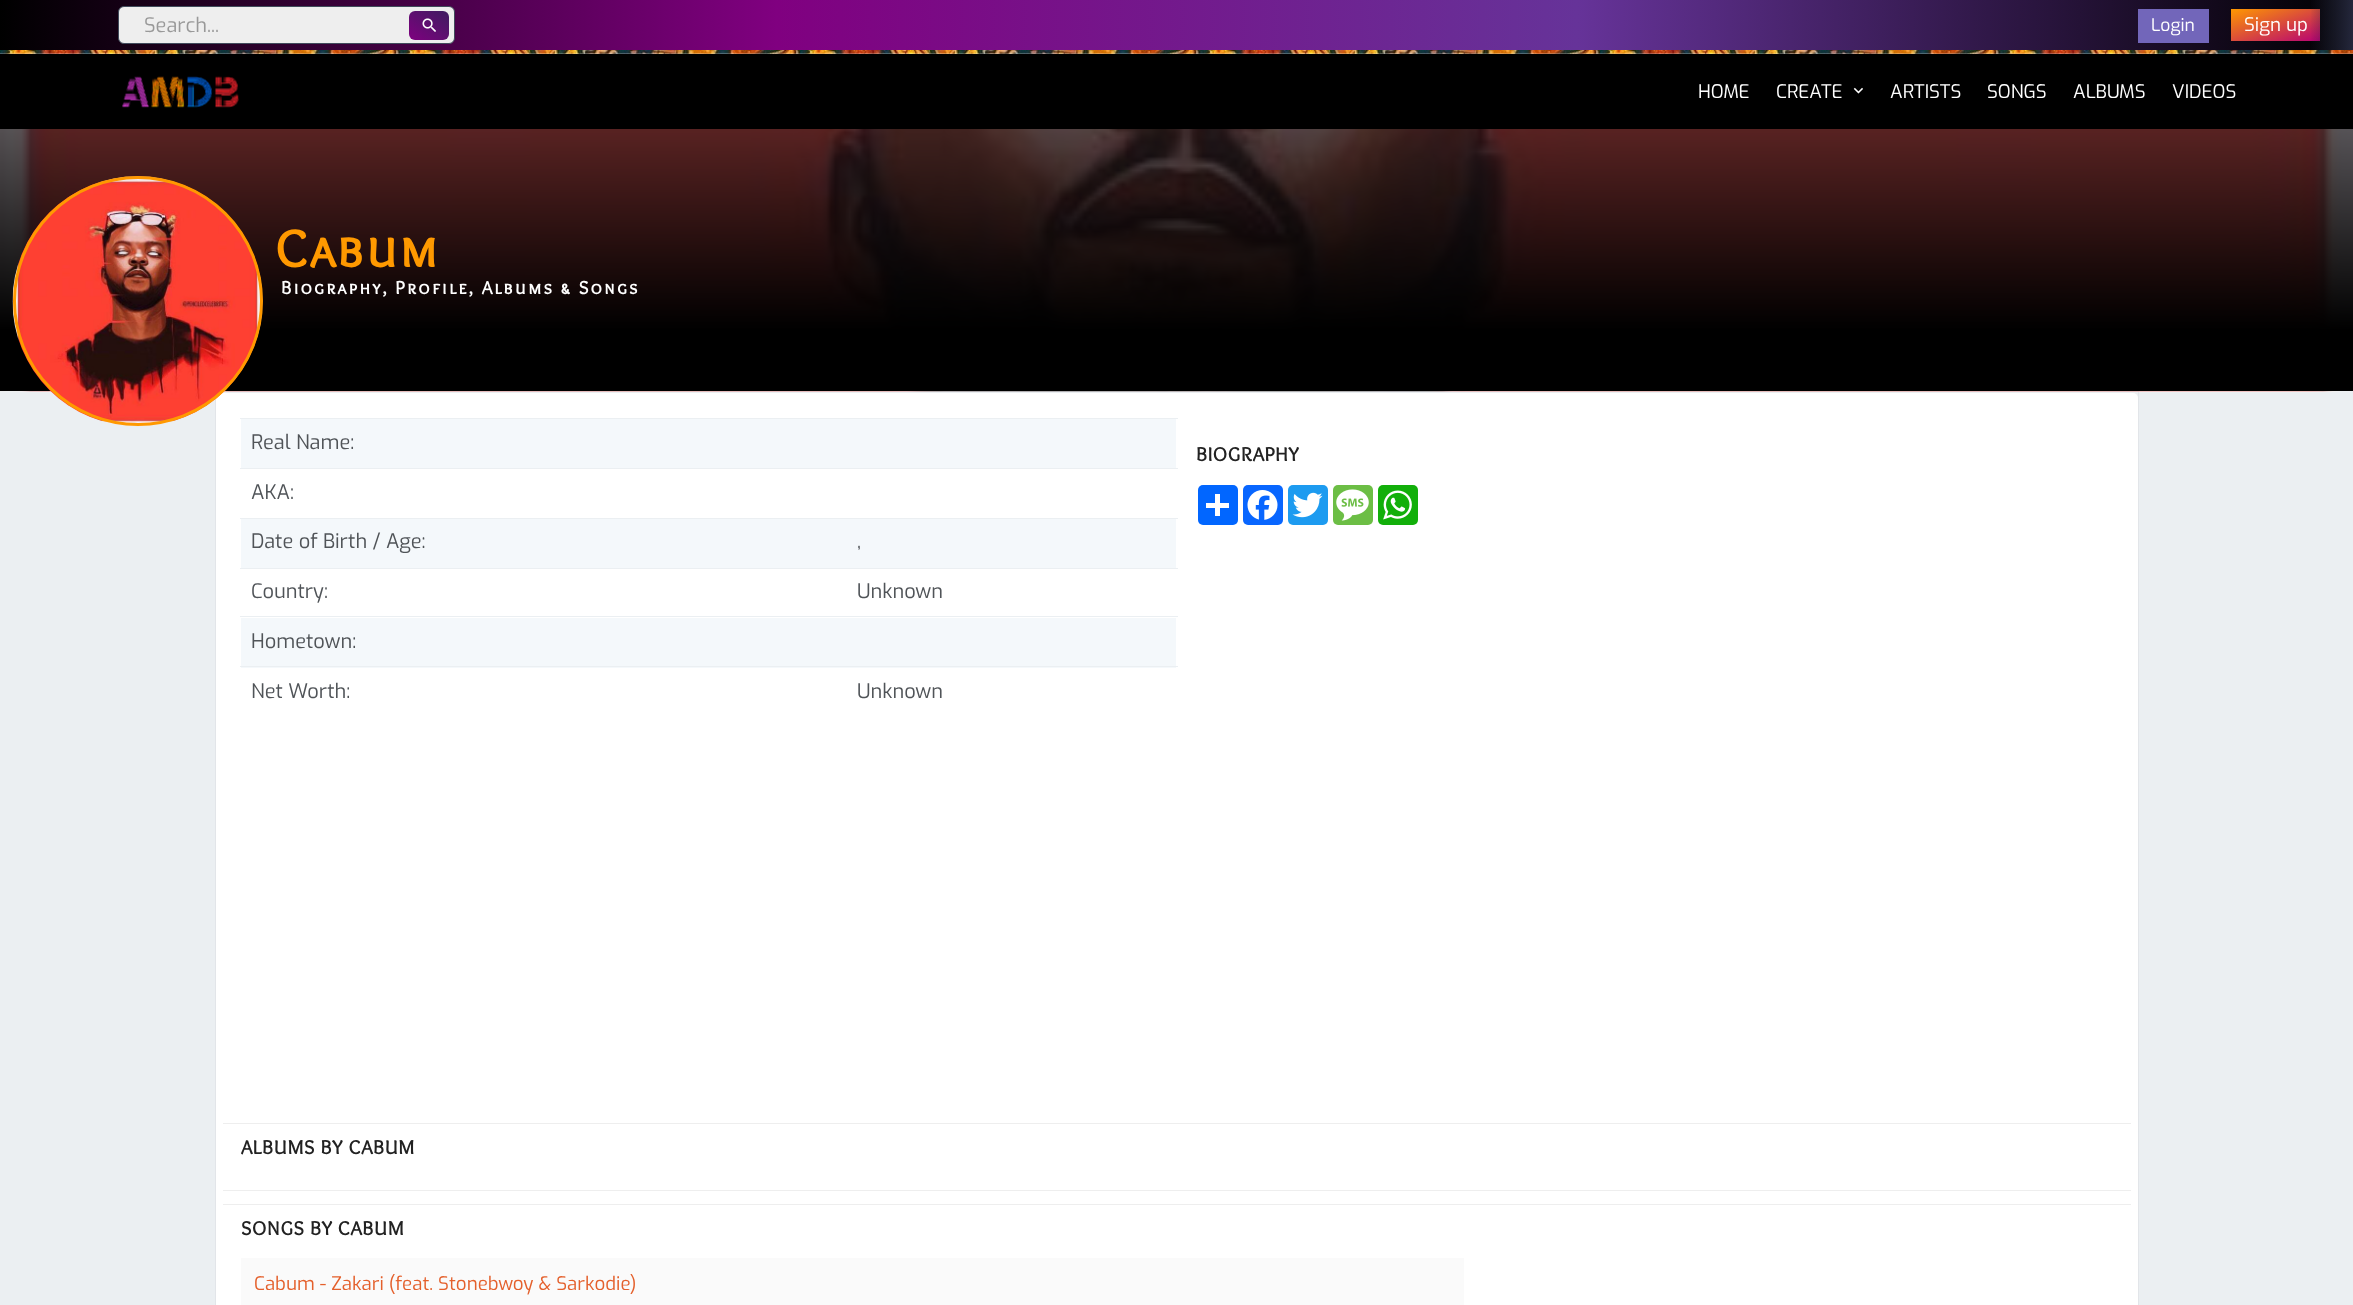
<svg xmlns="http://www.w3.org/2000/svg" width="2353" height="1305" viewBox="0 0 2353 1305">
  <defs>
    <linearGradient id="g1" gradientUnits="userSpaceOnUse" x1="0" y1="25" x2="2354" y2="25"><stop offset="0" stop-color="#000000"/><stop offset="0.33" stop-color="#800080"/><stop offset="0.67" stop-color="#663399"/><stop offset="1" stop-color="#000000"/></linearGradient>
    <linearGradient id="g2" gradientUnits="userSpaceOnUse" x1="415" y1="45" x2="442" y2="6.7"><stop offset="0" stop-color="#800080"/><stop offset="1" stop-color="#3e1c60"/></linearGradient>
    <linearGradient id="g3" gradientUnits="userSpaceOnUse" x1="2265" y1="-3.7" x2="2286" y2="54"><stop offset="0" stop-color="#ff9900"/><stop offset="1" stop-color="#b60075"/></linearGradient>
    <linearGradient id="g4" gradientUnits="userSpaceOnUse" x1="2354" y1="25" x2="2310" y2="25"><stop offset="0" stop-color="#25283d"/><stop offset="1" stop-color="#25283d" stop-opacity="0"/></linearGradient>
  </defs>
  <rect width="100%" height="100%" fill="#ebeff2"/>
  <rect x="0" y="0" width="2353" height="50" fill="url(#g1)"/>
  <rect x="118.5" y="6.5" width="336" height="37" rx="5.5" fill="#eeeeee" stroke="#404b5b"/>
  <text x="144" y="32" font-family="Exo" font-size="20" fill="#999999">Search...</text>
  <rect x="409" y="11" width="40" height="29" rx="6" fill="url(#g2)"/>
  <image x="422" y="18" width="14" height="14" href="img1.png"/>
  <rect x="2138" y="9" width="71" height="34" fill="#7266ba"/>
  <text x="2151" y="31" font-family="Exo" font-size="17.5" fill="#ffffff">Login</text>
  <rect x="2231" y="9" width="89" height="32" fill="url(#g3)"/>
  <text x="2244" y="31" font-family="Exo" font-size="18.75" fill="#ffffff">Sign up</text>
  <rect x="2311" y="0" width="42" height="50" fill="url(#g4)"/>
  <image x="0" y="50" width="2353" height="4" href="img2.png"/>
  <rect x="0" y="54" width="2353" height="75" fill="#000000"/>
  <image x="122" y="76" width="117" height="32" href="img3.png"/>
  <text x="1698" y="98" font-family="Exo" font-size="18.75" fill="#ffffff">HOME</text>
  <text x="1776" y="98" font-family="Exo" font-size="18.75" fill="#ffffff">CREATE</text>
  <image x="1853" y="87" width="10" height="7" href="img4.png"/>
  <text x="1890" y="98" font-family="Exo" font-size="18.75" fill="#ffffff">ARTISTS</text>
  <text x="1987" y="98" font-family="Exo" font-size="18.75" fill="#ffffff">SONGS</text>
  <text x="2073" y="98" font-family="Exo" font-size="18.75" fill="#ffffff">ALBUMS</text>
  <text x="2172" y="98" font-family="Exo" font-size="18.75" fill="#ffffff">VIDEOS</text>
  <image x="0" y="129" width="2353" height="263" href="img5.png"/>
  <rect x="216" y="393" width="1922" height="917" rx="5" fill="#ffffff"/>
  <rect x="215.5" y="391.5" width="1923" height="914" fill="none" stroke="#36404a" stroke-opacity="0.05"/>
  <rect x="241" y="419" width="935" height="49" fill="#f4f8fb"/>
  <rect x="240" y="418" width="938" height="1" fill="#ebeff2"/>
  <image x="12" y="176" width="251" height="251" href="img6.png"/>
  <circle cx="138" cy="301" r="123.5" fill="none" stroke="#ff9900" stroke-width="3"/>
  <text x="275" y="267" font-family="Overlock SC" font-size="54" font-weight="bold" letter-spacing="2.15" fill="#ff9900">Cabum</text>
  <text x="281" y="294" font-family="Overlock SC" font-size="18.75" font-weight="bold" letter-spacing="2.15" fill="#ffffff">Biography, Profile, Albums &amp; Songs</text>
  <text x="251" y="449" font-family="Exo" font-size="20" fill="#505458">Real Name:</text>
  <rect x="240" y="468" width="938" height="1" fill="#ebeff2"/>
  <text x="251" y="499" font-family="Exo" font-size="20" fill="#505458">AKA:</text>
  <rect x="241" y="519" width="935" height="49" fill="#f4f8fb"/>
  <text x="251" y="548" font-family="Exo" font-size="20" fill="#505458">Date of Birth / Age:</text>
  <rect x="240" y="518" width="938" height="1" fill="#ebeff2"/>
  <text x="857" y="548" font-family="Exo" font-size="20" fill="#505458">,</text>
  <text x="251" y="598" font-family="Exo" font-size="20" fill="#505458">Country:</text>
  <rect x="240" y="568" width="938" height="1" fill="#ebeff2"/>
  <text x="857" y="598" font-family="Exo" font-size="20" fill="#505458">Unknown</text>
  <rect x="241" y="618" width="935" height="50" fill="#f4f8fb"/>
  <rect x="240" y="616" width="938" height="1" fill="#ebeff2"/>
  <text x="251" y="648" font-family="Exo" font-size="20" fill="#505458">Hometown:</text>
  <text x="251" y="698" font-family="Exo" font-size="20" fill="#505458">Net Worth:</text>
  <rect x="240" y="666" width="938" height="1" fill="#ebeff2"/>
  <text x="857" y="698" font-family="Exo" font-size="20" fill="#505458">Unknown</text>
  <text x="1196" y="461" font-family="Overlock SC" font-size="20" font-weight="bold" letter-spacing="0.75" fill="#222222">BIOGRAPHY</text>
  <rect x="1198" y="485" width="40" height="40" rx="5" fill="#0166ff"/>
  <rect x="1215" y="494" width="5" height="22" fill="#ffffff"/>
  <rect x="1206" y="503" width="23" height="5" fill="#ffffff"/>
  <rect x="1243" y="485" width="40" height="40" rx="5" fill="#0866ff"/>
  <image x="1247" y="490" width="31" height="30" href="img7.png"/>
  <rect x="1288" y="485" width="40" height="40" rx="5" fill="#1d9bf0"/>
  <image x="1292" y="492" width="31" height="26" href="img8.png"/>
  <rect x="1333" y="485" width="40" height="40" rx="5" fill="#6cbe45"/>
  <image x="1336" y="489" width="33" height="32" href="img9.png"/>
  <rect x="1378" y="485" width="40" height="40" rx="5" fill="#12af0a"/>
  <image x="1383" y="490" width="29" height="30" href="img10.png"/>
  <rect x="223" y="1123" width="1908" height="1" fill="#eeeeee"/>
  <text x="241" y="1154" font-family="Overlock SC" font-size="20" font-weight="bold" letter-spacing="0.75" fill="#222222">ALBUMS BY CABUM</text>
  <rect x="223" y="1190" width="1908" height="1" fill="#eeeeee"/>
  <rect x="223" y="1204" width="1908" height="1" fill="#eeeeee"/>
  <text x="241" y="1235" font-family="Overlock SC" font-size="20" font-weight="bold" letter-spacing="0.75" fill="#222222">SONGS BY CABUM</text>
  <rect x="241" y="1258" width="1223" height="47" fill="#fafafa"/>
  <text x="254" y="1290" font-family="Exo" font-size="18.75" fill="#e4602c">Cabum - Zakari (feat. Stonebwoy &amp; Sarkodie)</text>
</svg>
